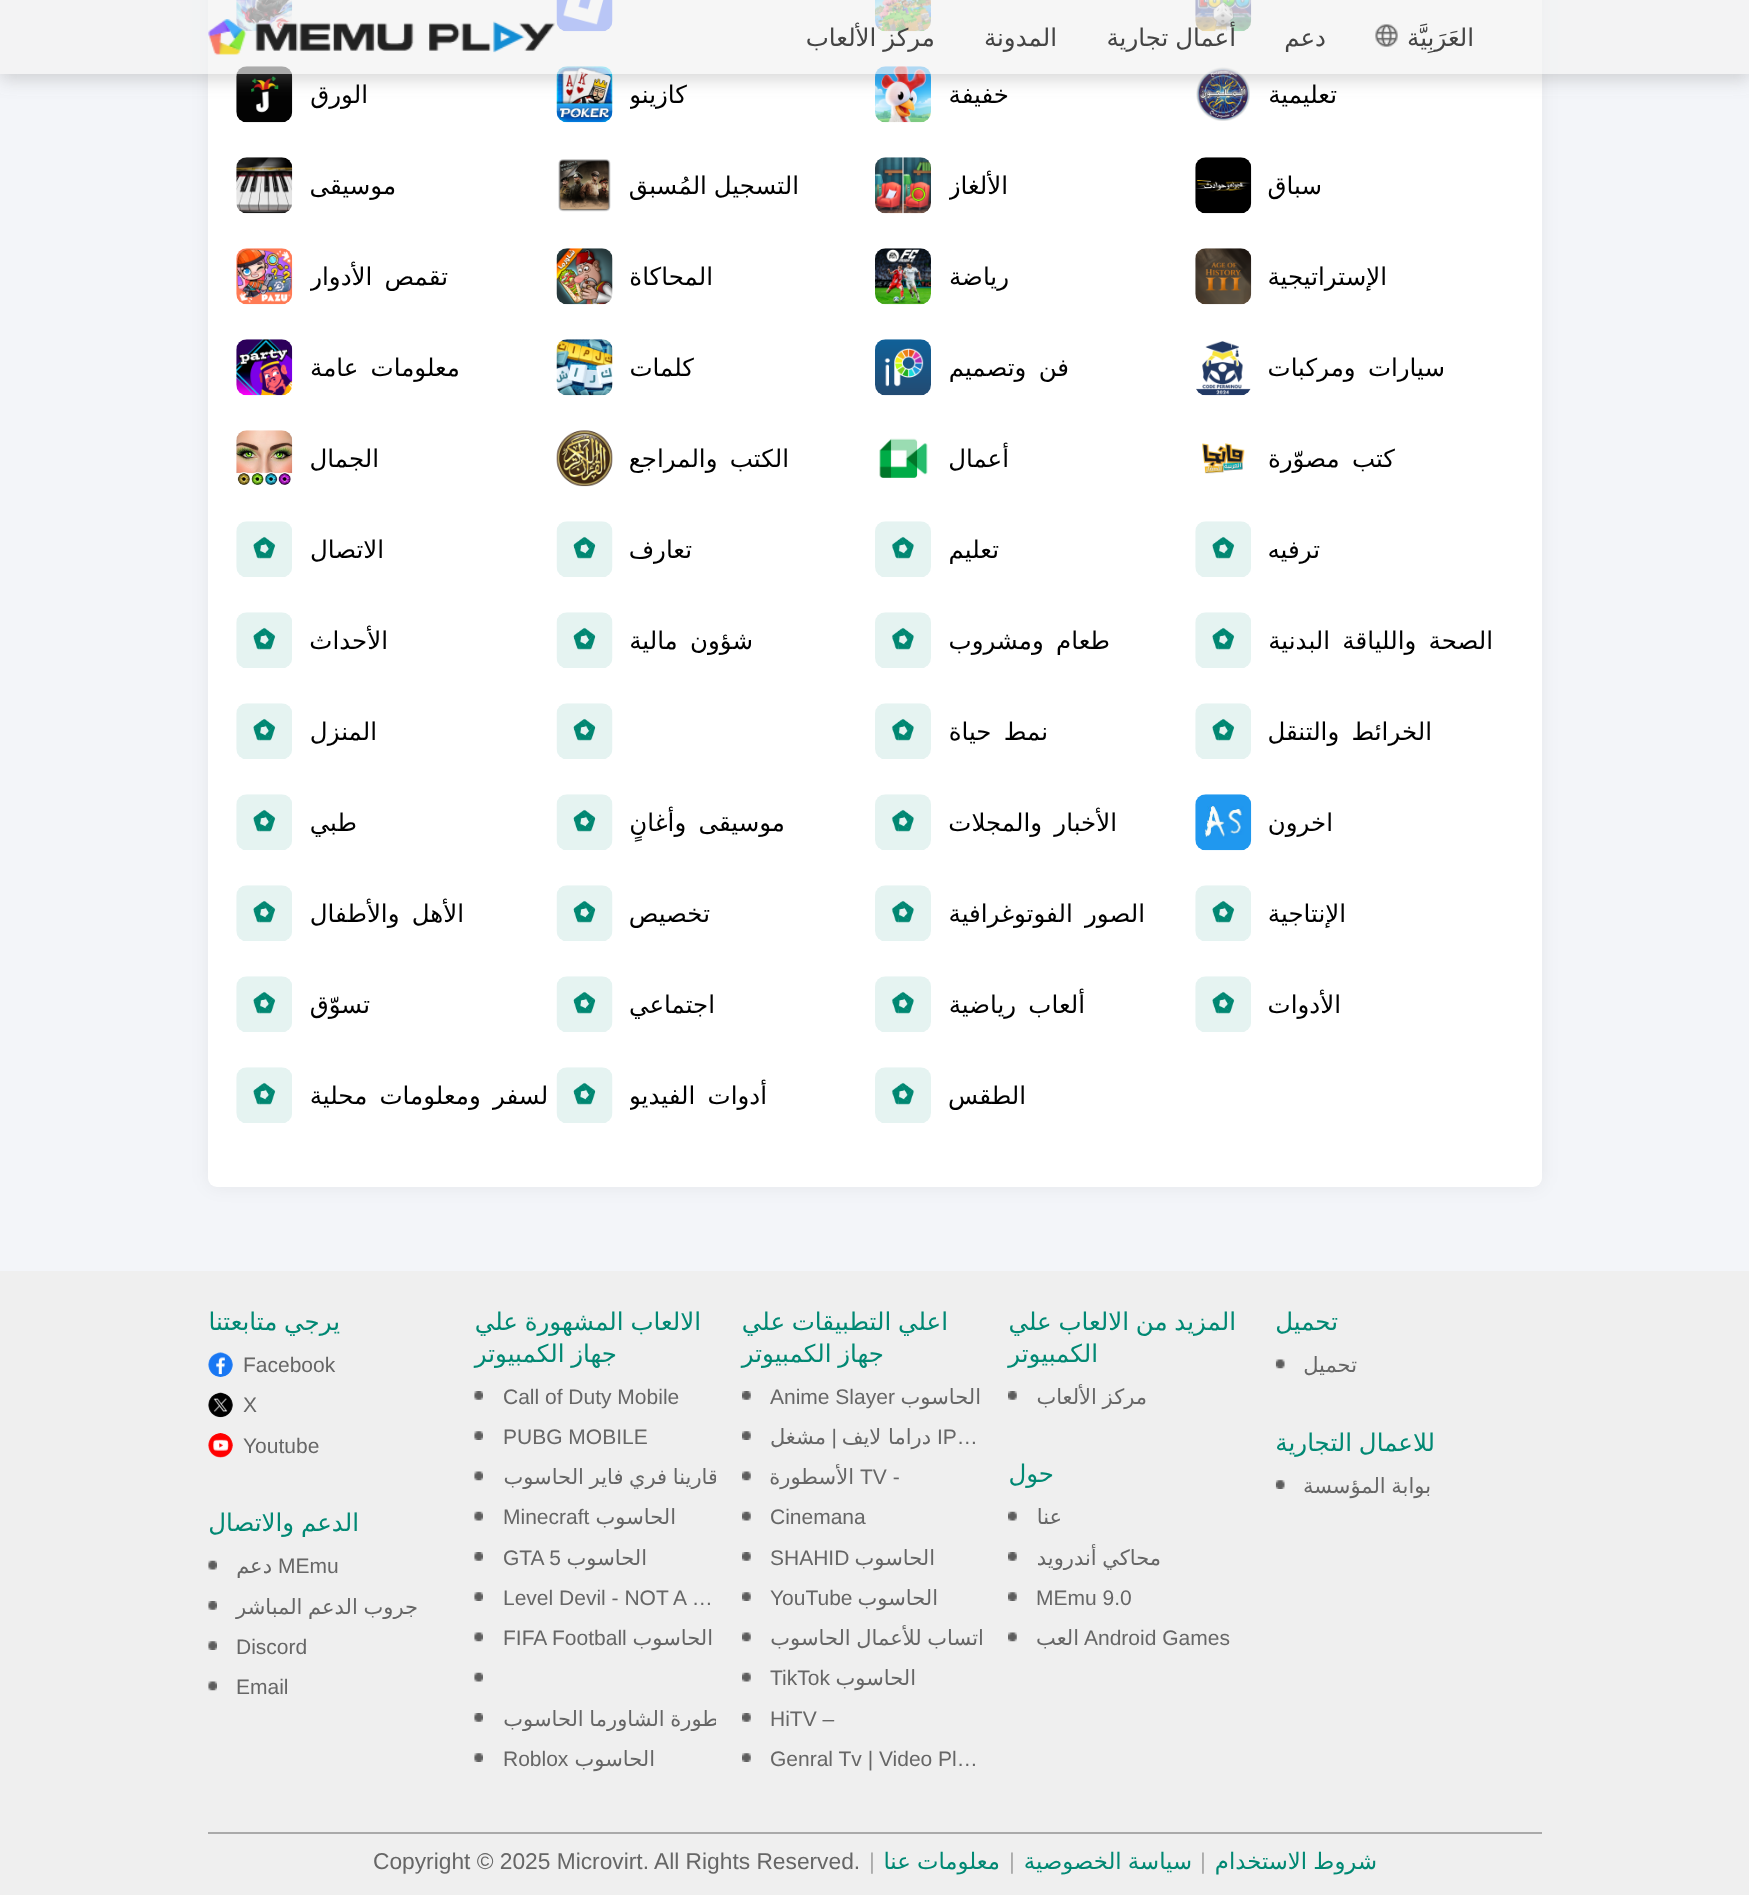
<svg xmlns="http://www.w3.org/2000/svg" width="1749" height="1895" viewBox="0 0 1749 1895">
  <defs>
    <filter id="blur1" x="-50%" y="-200%" width="200%" height="500%"><feGaussianBlur stdDeviation="9"/></filter>
    <clipPath id="clip1"><path d="M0 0H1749V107H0ZM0 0H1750V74H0Z" clip-rule="evenodd"/></clipPath>
    <clipPath id="clip2"><rect x="630" y="67" width="238" height="56"/></clipPath>
    <clipPath id="clip3"><rect x="949" y="158" width="239" height="56"/></clipPath>
    <clipPath id="clip4"><rect x="310" y="249" width="240" height="56"/></clipPath>
    <clipPath id="clip5"><rect x="630" y="1068" width="238" height="56"/></clipPath>
    <clipPath id="clip6"><rect x="310" y="1068" width="240" height="56"/></clipPath>
    <clipPath id="clip7"><rect x="1008" y="1530" width="242" height="40"/></clipPath>
    <clipPath id="clip8"><rect x="742" y="1610" width="240" height="40"/></clipPath>
    <clipPath id="clip9"><rect x="474" y="1449" width="242" height="40"/></clipPath>
    <clipPath id="clip10"><rect x="474" y="1691" width="242" height="40"/></clipPath>
    <clipPath id="clip11"><rect x="208" y="1579" width="240" height="40"/></clipPath>
  </defs>
  <rect width="100%" height="100%" fill="#f3f5f9"/>
  <rect x="208" y="-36" width="1334" height="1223" rx="9" fill="#000000" fill-opacity="0.06" filter="url(#blur1)"/>
  <rect x="208" y="-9" width="1334" height="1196" rx="9" fill="#ffffff"/>
  <image x="1195" y="0" width="57" height="32" href="img3.png"/>
  <image x="875" y="0" width="56" height="32" href="img4.png"/>
  <image x="556" y="0" width="57" height="32" href="img5.png"/>
  <image x="236" y="0" width="57" height="32" href="img6.png"/>
  <image x="1196" y="67" width="54" height="54" href="img7.png"/>
  <image x="875" y="66" width="56" height="57" href="img8.png"/>
  <image x="556" y="66" width="57" height="57" href="img9.png"/>
  <image x="236" y="66" width="57" height="57" href="img10.png"/>
  <g clip-path="url(#clip1)">
    <rect x="0" y="5" width="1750" height="74" fill="#888888" fill-opacity="0.35" filter="url(#blur1)"/>
  </g>
  <rect x="0" y="0" width="1749" height="74" fill="#f2f2f2" fill-opacity="0.7"/>
  <text x="1474" y="46" font-family="DejaVu Sans" font-size="24.5" direction="rtl" fill="#444444">العَرَبِيَّة</text>
  <image x="1375" y="24" width="23" height="23" href="img1.png"/>
  <text x="1326" y="46" font-family="DejaVu Sans" font-size="24.5" direction="rtl" fill="#444444">دعم</text>
  <text x="1236" y="46" word-spacing="-1" font-family="DejaVu Sans" font-size="24.5" direction="rtl" fill="#444444">أعمال تجارية</text>
  <text x="1057" y="46" font-family="DejaVu Sans" font-size="24.5" direction="rtl" fill="#444444">المدونة</text>
  <text x="935" y="46" word-spacing="-1" font-family="DejaVu Sans" font-size="24.5" direction="rtl" fill="#444444">مركز الألعاب</text>
  <image x="208" y="19" width="347" height="36" href="img2.png"/>
  <text x="1337" y="103" font-family="DejaVu Sans" font-size="24.5" direction="rtl" fill="#000000">تعليمية</text>
  <text x="1009" y="103" font-family="DejaVu Sans" font-size="24.5" direction="rtl" fill="#000000">خفيفة</text>
  <g clip-path="url(#clip2)">
    <text x="687" y="103" font-family="DejaVu Sans" font-size="24.5" direction="rtl" fill="#000000">كازينو</text>
  </g>
  <text x="368" y="103" font-family="DejaVu Sans" font-size="24.5" direction="rtl" fill="#000000">الورق</text>
  <text x="1322" y="194" font-family="DejaVu Sans" font-size="24.5" direction="rtl" fill="#000000">سباق</text>
  <image x="1195" y="157" width="57" height="57" href="img11.png"/>
  <g clip-path="url(#clip3)">
    <text x="1008" y="194" font-family="DejaVu Sans" font-size="24.5" direction="rtl" fill="#000000">الألغاز</text>
  </g>
  <image x="875" y="157" width="56" height="57" href="img12.png"/>
  <text x="799" y="194" word-spacing="-1" font-family="DejaVu Sans" font-size="24.5" direction="rtl" fill="#000000">التسجيل المُسبق</text>
  <image x="558" y="159" width="53" height="53" href="img13.png"/>
  <text x="396" y="194" font-family="DejaVu Sans" font-size="24.5" direction="rtl" fill="#000000">موسيقى</text>
  <image x="236" y="157" width="57" height="57" href="img14.png"/>
  <text x="1387" y="285" font-family="DejaVu Sans" font-size="24.5" direction="rtl" fill="#000000">الإستراتيجية</text>
  <image x="1195" y="248" width="57" height="57" href="img15.png"/>
  <text x="1009" y="285" font-family="DejaVu Sans" font-size="24.5" direction="rtl" fill="#000000">رياضة</text>
  <image x="875" y="248" width="56" height="57" href="img16.png"/>
  <text x="713" y="285" font-family="DejaVu Sans" font-size="24.5" direction="rtl" fill="#000000">المحاكاة</text>
  <image x="556" y="248" width="57" height="57" href="img17.png"/>
  <g clip-path="url(#clip4)">
    <text x="448" y="285" font-family="DejaVu Sans" font-size="24.5" direction="rtl" fill="#000000">تقمص الأدوار</text>
  </g>
  <image x="236" y="248" width="57" height="57" href="img18.png"/>
  <text x="1445" y="376" font-family="DejaVu Sans" font-size="24.5" direction="rtl" fill="#000000">سيارات ومركبات</text>
  <image x="1196" y="341" width="55" height="55" href="img19.png"/>
  <text x="1069" y="376" font-family="DejaVu Sans" font-size="24.5" direction="rtl" fill="#000000">فن وتصميم</text>
  <image x="875" y="339" width="56" height="57" href="img20.png"/>
  <text x="694" y="376" font-family="DejaVu Sans" font-size="24.5" direction="rtl" fill="#000000">كلمات</text>
  <image x="556" y="339" width="57" height="57" href="img21.png"/>
  <text x="460" y="376" font-family="DejaVu Sans" font-size="24.5" direction="rtl" fill="#000000">معلومات عامة</text>
  <image x="236" y="339" width="57" height="57" href="img22.png"/>
  <text x="1395" y="467" font-family="DejaVu Sans" font-size="24.5" direction="rtl" fill="#000000">كتب مصوّرة</text>
  <image x="1202" y="443" width="43" height="31" href="img23.png"/>
  <text x="1009" y="467" font-family="DejaVu Sans" font-size="24.5" direction="rtl" fill="#000000">أعمال</text>
  <image x="879" y="438" width="49" height="40" href="img24.png"/>
  <text x="789" y="467" font-family="DejaVu Sans" font-size="24.5" direction="rtl" fill="#000000">الكتب والمراجع</text>
  <image x="556" y="430" width="57" height="57" href="img25.png"/>
  <text x="379" y="467" font-family="DejaVu Sans" font-size="24.5" direction="rtl" fill="#000000">الجمال</text>
  <image x="236" y="430" width="57" height="55" href="img26.png"/>
  <text x="1320" y="558" font-family="DejaVu Sans" font-size="24.5" direction="rtl" fill="#000000">ترفيه</text>
  <image x="1195" y="521" width="56" height="56" href="img27.png"/>
  <text x="999" y="558" font-family="DejaVu Sans" font-size="24.5" direction="rtl" fill="#000000">تعليم</text>
  <image x="875" y="521" width="56" height="56" href="img28.png"/>
  <text x="692" y="558" font-family="DejaVu Sans" font-size="24.5" direction="rtl" fill="#000000">تعارف</text>
  <image x="556" y="521" width="57" height="56" href="img29.png"/>
  <text x="384" y="558" font-family="DejaVu Sans" font-size="24.5" direction="rtl" fill="#000000">الاتصال</text>
  <image x="236" y="521" width="56" height="56" href="img30.png"/>
  <text x="1493" y="649" font-family="DejaVu Sans" font-size="24.5" direction="rtl" fill="#000000">الصحة واللياقة البدنية</text>
  <image x="1195" y="612" width="56" height="56" href="img31.png"/>
  <text x="1110" y="649" font-family="DejaVu Sans" font-size="24.5" direction="rtl" fill="#000000">طعام ومشروب</text>
  <image x="875" y="612" width="56" height="56" href="img32.png"/>
  <text x="753" y="649" font-family="DejaVu Sans" font-size="24.5" direction="rtl" fill="#000000">شؤون مالية</text>
  <image x="556" y="612" width="57" height="56" href="img33.png"/>
  <text x="388" y="649" font-family="DejaVu Sans" font-size="24.5" direction="rtl" fill="#000000">الأحداث</text>
  <image x="236" y="612" width="56" height="56" href="img34.png"/>
  <text x="1432" y="740" font-family="DejaVu Sans" font-size="24.5" direction="rtl" fill="#000000">الخرائط والتنقل</text>
  <image x="1195" y="703" width="56" height="56" href="img31.png"/>
  <text x="1048" y="740" font-family="DejaVu Sans" font-size="24.5" direction="rtl" fill="#000000">نمط حياة</text>
  <image x="875" y="703" width="56" height="56" href="img32.png"/>
  <image x="556" y="703" width="57" height="56" href="img33.png"/>
  <text x="377" y="740" font-family="DejaVu Sans" font-size="24.5" direction="rtl" fill="#000000">المنزل</text>
  <image x="236" y="703" width="56" height="56" href="img34.png"/>
  <text x="1333" y="831" font-family="DejaVu Sans" font-size="24.5" direction="rtl" fill="#000000">اخرون</text>
  <image x="1195" y="794" width="57" height="57" href="img35.png"/>
  <text x="1117" y="831" font-family="DejaVu Sans" font-size="24.5" direction="rtl" fill="#000000">الأخبار والمجلات</text>
  <image x="875" y="794" width="56" height="56" href="img32.png"/>
  <text x="785" y="831" font-family="DejaVu Sans" font-size="24.5" direction="rtl" fill="#000000">موسيقى وأغانٍ</text>
  <image x="556" y="794" width="57" height="56" href="img33.png"/>
  <text x="357" y="831" font-family="DejaVu Sans" font-size="24.5" direction="rtl" fill="#000000">طبي</text>
  <image x="236" y="794" width="56" height="56" href="img34.png"/>
  <text x="1346" y="922" font-family="DejaVu Sans" font-size="24.5" direction="rtl" fill="#000000">الإنتاجية</text>
  <image x="1195" y="885" width="56" height="56" href="img31.png"/>
  <text x="1145" y="922" font-family="DejaVu Sans" font-size="24.5" direction="rtl" fill="#000000">الصور الفوتوغرافية</text>
  <image x="875" y="885" width="56" height="56" href="img32.png"/>
  <text x="710" y="922" font-family="DejaVu Sans" font-size="24.5" direction="rtl" fill="#000000">تخصيص</text>
  <image x="556" y="885" width="57" height="56" href="img33.png"/>
  <text x="464" y="922" font-family="DejaVu Sans" font-size="24.5" direction="rtl" fill="#000000">الأهل والأطفال</text>
  <image x="236" y="885" width="56" height="56" href="img34.png"/>
  <text x="1341" y="1013" font-family="DejaVu Sans" font-size="24.5" direction="rtl" fill="#000000">الأدوات</text>
  <image x="1195" y="976" width="56" height="56" href="img31.png"/>
  <text x="1085" y="1013" font-family="DejaVu Sans" font-size="24.5" direction="rtl" fill="#000000">ألعاب رياضية</text>
  <image x="875" y="976" width="56" height="56" href="img32.png"/>
  <text x="715" y="1013" font-family="DejaVu Sans" font-size="24.5" direction="rtl" fill="#000000">اجتماعي</text>
  <image x="556" y="976" width="57" height="56" href="img33.png"/>
  <text x="370" y="1013" font-family="DejaVu Sans" font-size="24.5" direction="rtl" fill="#000000">تسوّق</text>
  <image x="236" y="976" width="56" height="56" href="img34.png"/>
  <text x="1026" y="1104" font-family="DejaVu Sans" font-size="24.5" direction="rtl" fill="#000000">الطقس</text>
  <image x="875" y="1067" width="56" height="56" href="img32.png"/>
  <g clip-path="url(#clip5)">
    <text x="767" y="1104" font-family="DejaVu Sans" font-size="24.5" direction="rtl" fill="#000000">أدوات الفيديو</text>
  </g>
  <image x="556" y="1067" width="57" height="56" href="img33.png"/>
  <g clip-path="url(#clip6)">
    <text x="555" y="1104" font-family="DejaVu Sans" font-size="24.5" direction="rtl" fill="#000000">السفر ومعلومات محلية</text>
  </g>
  <image x="236" y="1067" width="56" height="56" href="img34.png"/>
  <rect x="0" y="1271" width="1749" height="624" fill="#efefef"/>
  <text x="1338" y="1330" font-family="DejaVu Sans" font-size="24.5" direction="rtl" fill="#008873">تحميل</text>
  <text x="1357" y="1372" font-family="DejaVu Sans" font-size="21" direction="rtl" fill="#666666">تحميل</text>
  <image x="1275" y="1359" width="10" height="10" href="img36.png"/>
  <text x="1435" y="1451" word-spacing="-1" font-family="DejaVu Sans" font-size="24.5" direction="rtl" fill="#008873">للاعمال التجارية</text>
  <text x="1431" y="1493" word-spacing="-1" font-family="DejaVu Sans" font-size="21" direction="rtl" fill="#666666">بوابة المؤسسة</text>
  <image x="1275" y="1480" width="10" height="9" href="img37.png"/>
  <text x="1236" y="1330" word-spacing="-1" font-family="DejaVu Sans" font-size="24.5" direction="rtl" fill="#008873">المزيد من الالعاب علي</text>
  <text x="1098" y="1362" font-family="DejaVu Sans" font-size="24.5" direction="rtl" fill="#008873">الكمبيوتر</text>
  <text x="1147" y="1404" word-spacing="-1" font-family="DejaVu Sans" font-size="21" direction="rtl" fill="#666666">مركز الألعاب</text>
  <image x="1008" y="1391" width="9" height="9" href="img38.png"/>
  <text x="1054" y="1482" font-family="DejaVu Sans" font-size="24.5" direction="rtl" fill="#008873">حول</text>
  <text x="1062" y="1524" font-family="DejaVu Sans" font-size="21" direction="rtl" fill="#666666">عنا</text>
  <image x="1008" y="1511" width="9" height="10" href="img39.png"/>
  <g clip-path="url(#clip7)">
    <text x="1161" y="1565" word-spacing="-1" font-family="DejaVu Sans" font-size="21" direction="rtl" fill="#666666">محاكي أندرويد</text>
  </g>
  <image x="1008" y="1552" width="9" height="9" href="img38.png"/>
  <text x="1036" y="1605" font-family="Liberation Sans" font-size="21" fill="#666666">MEmu 9.0</text>
  <image x="1008" y="1592" width="9" height="9" href="img40.png"/>
  <text x="1084" y="1645" font-family="Liberation Sans" font-size="21" fill="#666666">Android Games</text>
  <text x="1079" y="1645" font-family="DejaVu Sans" font-size="21" direction="rtl" fill="#666666">العب</text>
  <image x="1008" y="1632" width="9" height="10" href="img41.png"/>
  <text x="948" y="1330" word-spacing="-1" font-family="DejaVu Sans" font-size="24.5" direction="rtl" fill="#008873">اعلي التطبيقات علي</text>
  <text x="884" y="1362" word-spacing="-1" font-family="DejaVu Sans" font-size="24.5" direction="rtl" fill="#008873">جهاز الكمبيوتر</text>
  <text x="981" y="1404" font-family="DejaVu Sans" font-size="21" direction="rtl" fill="#666666">الحاسوب</text>
  <text x="770" y="1404" font-family="Liberation Sans" font-size="21" fill="#666666">Anime Slayer</text>
  <image x="742" y="1391" width="9" height="9" href="img38.png"/>
  <text x="937" y="1444" font-family="Liberation Sans" font-size="21" fill="#666666">IP…</text>
  <text x="931" y="1444" font-family="DejaVu Sans" font-size="21" direction="rtl" fill="#666666">دراما لايف</text>
  <text x="837" y="1444" font-family="Liberation Sans" font-size="21" direction="rtl" fill="#666666">|</text>
  <text x="826" y="1444" font-family="DejaVu Sans" font-size="21" direction="rtl" fill="#666666">مشغل</text>
  <image x="742" y="1431" width="9" height="9" href="img40.png"/>
  <text x="860" y="1484" font-family="Liberation Sans" font-size="21" fill="#666666">TV -</text>
  <text x="854" y="1484" font-family="DejaVu Sans" font-size="21" direction="rtl" fill="#666666">الأسطورة</text>
  <image x="742" y="1471" width="9" height="10" href="img41.png"/>
  <text x="770" y="1524" font-family="Liberation Sans" font-size="21" fill="#666666">Cinemana</text>
  <image x="742" y="1511" width="9" height="10" href="img39.png"/>
  <text x="935" y="1565" font-family="DejaVu Sans" font-size="21" direction="rtl" fill="#666666">الحاسوب</text>
  <text x="770" y="1565" font-family="Liberation Sans" font-size="21" fill="#666666">SHAHID</text>
  <image x="742" y="1552" width="9" height="9" href="img38.png"/>
  <text x="938" y="1605" font-family="DejaVu Sans" font-size="21" direction="rtl" fill="#666666">الحاسوب</text>
  <text x="770" y="1605" font-family="Liberation Sans" font-size="21" fill="#666666">YouTube</text>
  <image x="742" y="1592" width="9" height="9" href="img40.png"/>
  <g clip-path="url(#clip8)">
    <text x="994" y="1645" word-spacing="-1" font-family="DejaVu Sans" font-size="21" direction="rtl" fill="#666666">واتساب للأعمال الحاسوب</text>
  </g>
  <image x="742" y="1632" width="9" height="10" href="img41.png"/>
  <text x="916" y="1685" font-family="DejaVu Sans" font-size="21" direction="rtl" fill="#666666">الحاسوب</text>
  <text x="770" y="1685" font-family="Liberation Sans" font-size="21" fill="#666666">TikTok</text>
  <image x="742" y="1672" width="9" height="10" href="img39.png"/>
  <text x="770" y="1726" font-family="Liberation Sans" font-size="21" fill="#666666">HiTV –</text>
  <image x="742" y="1713" width="9" height="9" href="img38.png"/>
  <text x="770" y="1766" font-family="Liberation Sans" font-size="21" fill="#666666">Genral Tv | Video Pl…</text>
  <image x="742" y="1753" width="9" height="9" href="img40.png"/>
  <text x="701" y="1330" word-spacing="-1" font-family="DejaVu Sans" font-size="24.5" direction="rtl" fill="#008873">الالعاب المشهورة علي</text>
  <text x="617" y="1362" word-spacing="-1" font-family="DejaVu Sans" font-size="24.5" direction="rtl" fill="#008873">جهاز الكمبيوتر</text>
  <text x="503" y="1404" font-family="Liberation Sans" font-size="21" fill="#666666">Call of Duty Mobile</text>
  <image x="474" y="1391" width="9" height="9" href="img42.png"/>
  <text x="503" y="1444" font-family="Liberation Sans" font-size="21" fill="#666666">PUBG MOBILE</text>
  <image x="474" y="1431" width="9" height="9" href="img43.png"/>
  <g clip-path="url(#clip9)">
    <text x="718" y="1484" word-spacing="-1" font-family="DejaVu Sans" font-size="21" direction="rtl" fill="#666666">قارينا فري فاير الحاسوب</text>
  </g>
  <image x="474" y="1471" width="9" height="10" href="img44.png"/>
  <text x="676" y="1524" font-family="DejaVu Sans" font-size="21" direction="rtl" fill="#666666">الحاسوب</text>
  <text x="503" y="1524" font-family="Liberation Sans" font-size="21" fill="#666666">Minecraft</text>
  <image x="474" y="1511" width="9" height="10" href="img45.png"/>
  <text x="647" y="1565" font-family="DejaVu Sans" font-size="21" direction="rtl" fill="#666666">الحاسوب</text>
  <text x="503" y="1565" font-family="Liberation Sans" font-size="21" fill="#666666">GTA 5</text>
  <image x="474" y="1552" width="9" height="9" href="img42.png"/>
  <text x="503" y="1605" font-family="Liberation Sans" font-size="21" fill="#666666">Level Devil - NOT A …</text>
  <image x="474" y="1592" width="9" height="9" href="img43.png"/>
  <text x="713" y="1645" font-family="DejaVu Sans" font-size="21" direction="rtl" fill="#666666">الحاسوب</text>
  <text x="503" y="1645" font-family="Liberation Sans" font-size="21" fill="#666666">FIFA Football</text>
  <image x="474" y="1632" width="9" height="10" href="img44.png"/>
  <image x="474" y="1672" width="9" height="10" href="img45.png"/>
  <g clip-path="url(#clip10)">
    <text x="743" y="1726" word-spacing="-1" font-family="DejaVu Sans" font-size="21" direction="rtl" fill="#666666">أسطورة الشاورما الحاسوب</text>
  </g>
  <image x="474" y="1713" width="9" height="9" href="img42.png"/>
  <text x="655" y="1766" font-family="DejaVu Sans" font-size="21" direction="rtl" fill="#666666">الحاسوب</text>
  <text x="503" y="1766" font-family="Liberation Sans" font-size="21" fill="#666666">Roblox</text>
  <image x="474" y="1753" width="9" height="9" href="img43.png"/>
  <text x="340" y="1330" word-spacing="-1" font-family="DejaVu Sans" font-size="24.5" direction="rtl" fill="#008873">يرجي متابعتنا</text>
  <text x="243" y="1372" font-family="Liberation Sans" font-size="21" fill="#666666">Facebook</text>
  <image x="208" y="1352" width="25" height="25" href="img46.png"/>
  <text x="243" y="1412" font-family="Liberation Sans" font-size="21" fill="#666666">X</text>
  <image x="208" y="1392" width="25" height="26" href="img47.png"/>
  <text x="243" y="1453" font-family="Liberation Sans" font-size="21" fill="#666666">Youtube</text>
  <image x="208" y="1433" width="25" height="25" href="img48.png"/>
  <text x="359" y="1531" word-spacing="-1" font-family="DejaVu Sans" font-size="24.5" direction="rtl" fill="#008873">الدعم والاتصال</text>
  <text x="278" y="1573" font-family="Liberation Sans" font-size="21" fill="#666666">MEmu</text>
  <text x="272" y="1573" font-family="DejaVu Sans" font-size="21" direction="rtl" fill="#666666">دعم</text>
  <image x="208" y="1560" width="9" height="10" href="img45.png"/>
  <g clip-path="url(#clip11)">
    <text x="418" y="1614" word-spacing="-1" font-family="DejaVu Sans" font-size="21" direction="rtl" fill="#666666">جروب الدعم المباشر</text>
  </g>
  <image x="208" y="1601" width="9" height="9" href="img42.png"/>
  <text x="236" y="1654" font-family="Liberation Sans" font-size="21" fill="#666666">Discord</text>
  <image x="208" y="1641" width="9" height="9" href="img43.png"/>
  <text x="236" y="1694" font-family="Liberation Sans" font-size="21" fill="#666666">Email</text>
  <image x="208" y="1681" width="9" height="10" href="img44.png"/>
  <rect x="208" y="1832" width="1334" height="2" fill="#aaaaaa"/>
  <text x="1377" y="1869" word-spacing="-1" font-family="DejaVu Sans" font-size="22.75" direction="rtl" fill="#008873">شروط الاستخدام</text>
  <text x="1200" y="1869" font-family="Liberation Sans" font-size="22.75" fill="#aaaaaa">|</text>
  <text x="1192" y="1869" word-spacing="-1" font-family="DejaVu Sans" font-size="22.75" direction="rtl" fill="#008873">سياسة الخصوصية</text>
  <text x="1009" y="1869" font-family="Liberation Sans" font-size="22.75" fill="#aaaaaa">|</text>
  <text x="1000" y="1869" word-spacing="-1" font-family="DejaVu Sans" font-size="22.75" direction="rtl" fill="#008873">معلومات عنا</text>
  <text x="869" y="1869" font-family="Liberation Sans" font-size="22.75" fill="#aaaaaa">|</text>
  <text x="373" y="1869" font-family="Liberation Sans" font-size="22.75" fill="#666666">Copyright © 2025 Microvirt. All Rights Reserved.</text>
</svg>
